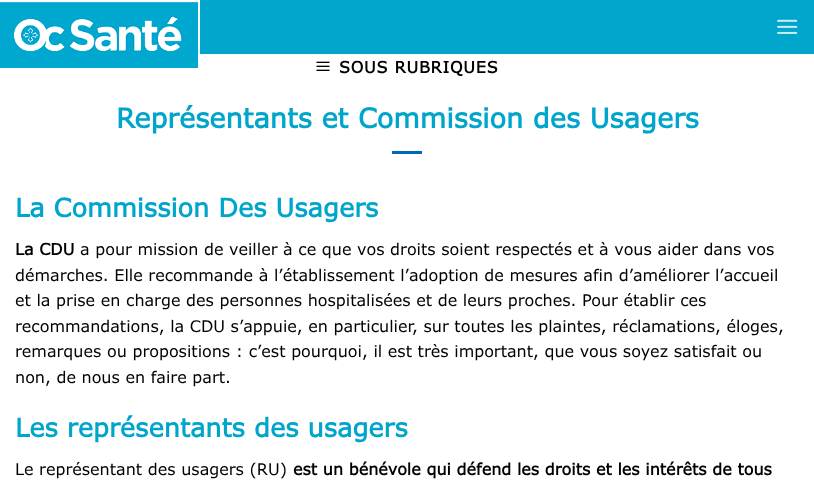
<svg xmlns="http://www.w3.org/2000/svg" width="814" height="481" viewBox="0 0 814 481">
  <rect width="100%" height="100%" fill="#ffffff"/>
  <rect x="200" y="0" width="614" height="54" fill="#00a5cc"/>
  <image x="0" y="0" width="200" height="68" href="img1.png"/>
  <image x="777" y="19" width="21" height="15" href="img2.png"/>
  <image x="316" y="61" width="14" height="10" href="img3.png"/>
  <text x="339" y="73" font-family="Verdana" font-size="16" font-weight="bold" letter-spacing="0.75" fill="#000000">SOUS RUBRIQUES</text>
  <text x="116" y="128" font-family="Verdana" font-size="27.2" font-weight="bold" fill="#00a5cc">Représentants et Commission des Usagers</text>
  <rect x="392" y="151" width="30" height="3" fill="#0069b4"/>
  <text x="15" y="217" font-family="Verdana" font-size="25.6" font-weight="bold" fill="#00a5cc">La Commission Des Usagers</text>
  <text x="15" y="255" font-family="Verdana" font-size="16" font-weight="bold" fill="#000000">La CDU</text>
  <text x="80" y="255" font-family="Verdana" font-size="16" fill="#000000">a pour mission de veiller à ce que vos droits soient respectés et à vous aider dans vos</text>
  <text x="15" y="281" font-family="Verdana" font-size="16" fill="#000000">démarches. Elle recommande à l’établissement l’adoption de mesures afin d’améliorer l’accueil</text>
  <text x="15" y="306" font-family="Verdana" font-size="16" fill="#000000">et la prise en charge des personnes hospitalisées et de leurs proches. Pour établir ces</text>
  <text x="15" y="332" font-family="Verdana" font-size="16" fill="#000000">recommandations, la CDU s’appuie, en particulier, sur toutes les plaintes, réclamations, éloges,</text>
  <text x="15" y="357" font-family="Verdana" font-size="16" fill="#000000">remarques ou propositions : c’est pourquoi, il est très important, que vous soyez satisfait ou</text>
  <text x="15" y="383" font-family="Verdana" font-size="16" fill="#000000">non, de nous en faire part.</text>
  <text x="15" y="437" font-family="Verdana" font-size="25.6" font-weight="bold" fill="#00a5cc">Les représentants des usagers</text>
  <text x="15" y="475" font-family="Verdana" font-size="16" fill="#000000">Le représentant des usagers (RU)</text>
  <text x="293" y="475" font-family="Verdana" font-size="16" font-weight="bold" fill="#000000">est un bénévole qui défend les droits et les intérêts de tous</text>
</svg>
